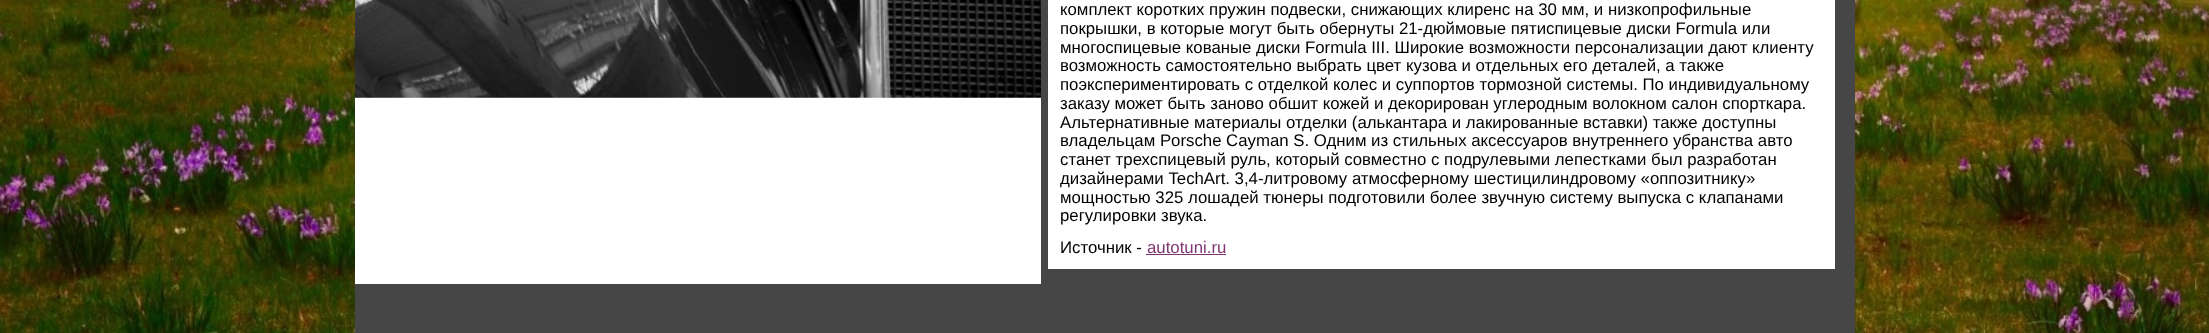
<svg xmlns="http://www.w3.org/2000/svg" width="2209" height="333" viewBox="0 0 2209 333">
  <rect width="100%" height="100%" fill="#ffffff"/>
  <image x="0" y="0" width="2209" height="333" href="img1.png"/>
  <rect x="355" y="97" width="686" height="187" fill="#ffffff"/>
  <image x="355" y="0" width="686" height="98" href="img2.png"/>
  <rect x="1041" y="0" width="814" height="284" fill="#464646"/>
  <rect x="1048" y="0" width="787" height="269" fill="#ffffff"/>
  <text x="1060" y="15" font-family="Liberation Sans" font-size="16.8" fill="#000000">комплект коротких пружин подвески, снижающих клиренс на 30 мм, и низкопрофильные</text>
  <text x="1060" y="34" font-family="Liberation Sans" font-size="16.8" fill="#000000">покрышки, в которые могут быть обернуты 21-дюймовые пятиспицевые диски Formula или</text>
  <text x="1060" y="53" font-family="Liberation Sans" font-size="16.8" fill="#000000">многоспицевые кованые диски Formula III. Широкие возможности персонализации дают клиенту</text>
  <text x="1060" y="71" font-family="Liberation Sans" font-size="16.8" fill="#000000">возможность самостоятельно выбрать цвет кузова и отдельных его деталей, а также</text>
  <text x="1060" y="90" font-family="Liberation Sans" font-size="16.8" fill="#000000">поэкспериментировать с отделкой колес и суппортов тормозной системы. По индивидуальному</text>
  <text x="1060" y="109" font-family="Liberation Sans" font-size="16.8" fill="#000000">заказу может быть заново обшит кожей и декорирован углеродным волокном салон спорткара.</text>
  <text x="1060" y="128" font-family="Liberation Sans" font-size="16.8" fill="#000000">Альтернативные материалы отделки (алькантара и лакированные вставки) также доступны</text>
  <text x="1060" y="146" font-family="Liberation Sans" font-size="16.8" fill="#000000">владельцам Porsche Cayman S. Одним из стильных аксессуаров внутреннего убранства авто</text>
  <text x="1060" y="165" font-family="Liberation Sans" font-size="16.8" fill="#000000">станет трехспицевый руль, который совместно с подрулевыми лепестками был разработан</text>
  <text x="1060" y="184" font-family="Liberation Sans" font-size="16.8" fill="#000000">дизайнерами TechArt. 3,4-литровому атмосферному шестицилиндровому «оппозитнику»</text>
  <text x="1060" y="203" font-family="Liberation Sans" font-size="16.8" fill="#000000">мощностью 325 лошадей тюнеры подготовили более звучную систему выпуска с клапанами</text>
  <text x="1060" y="221" font-family="Liberation Sans" font-size="16.8" fill="#000000">регулировки звука.</text>
  <text x="1060" y="253" font-family="Liberation Sans" font-size="16.8" fill="#000000">Источник -</text>
  <text x="1147" y="253" font-family="Liberation Sans" font-size="16.8" fill="#7d3572">autotuni.ru</text>
  <rect x="1146" y="254" width="80" height="1" fill="#7d3572"/>
  <rect x="355" y="284" width="1500" height="49" fill="#464646"/>
</svg>
